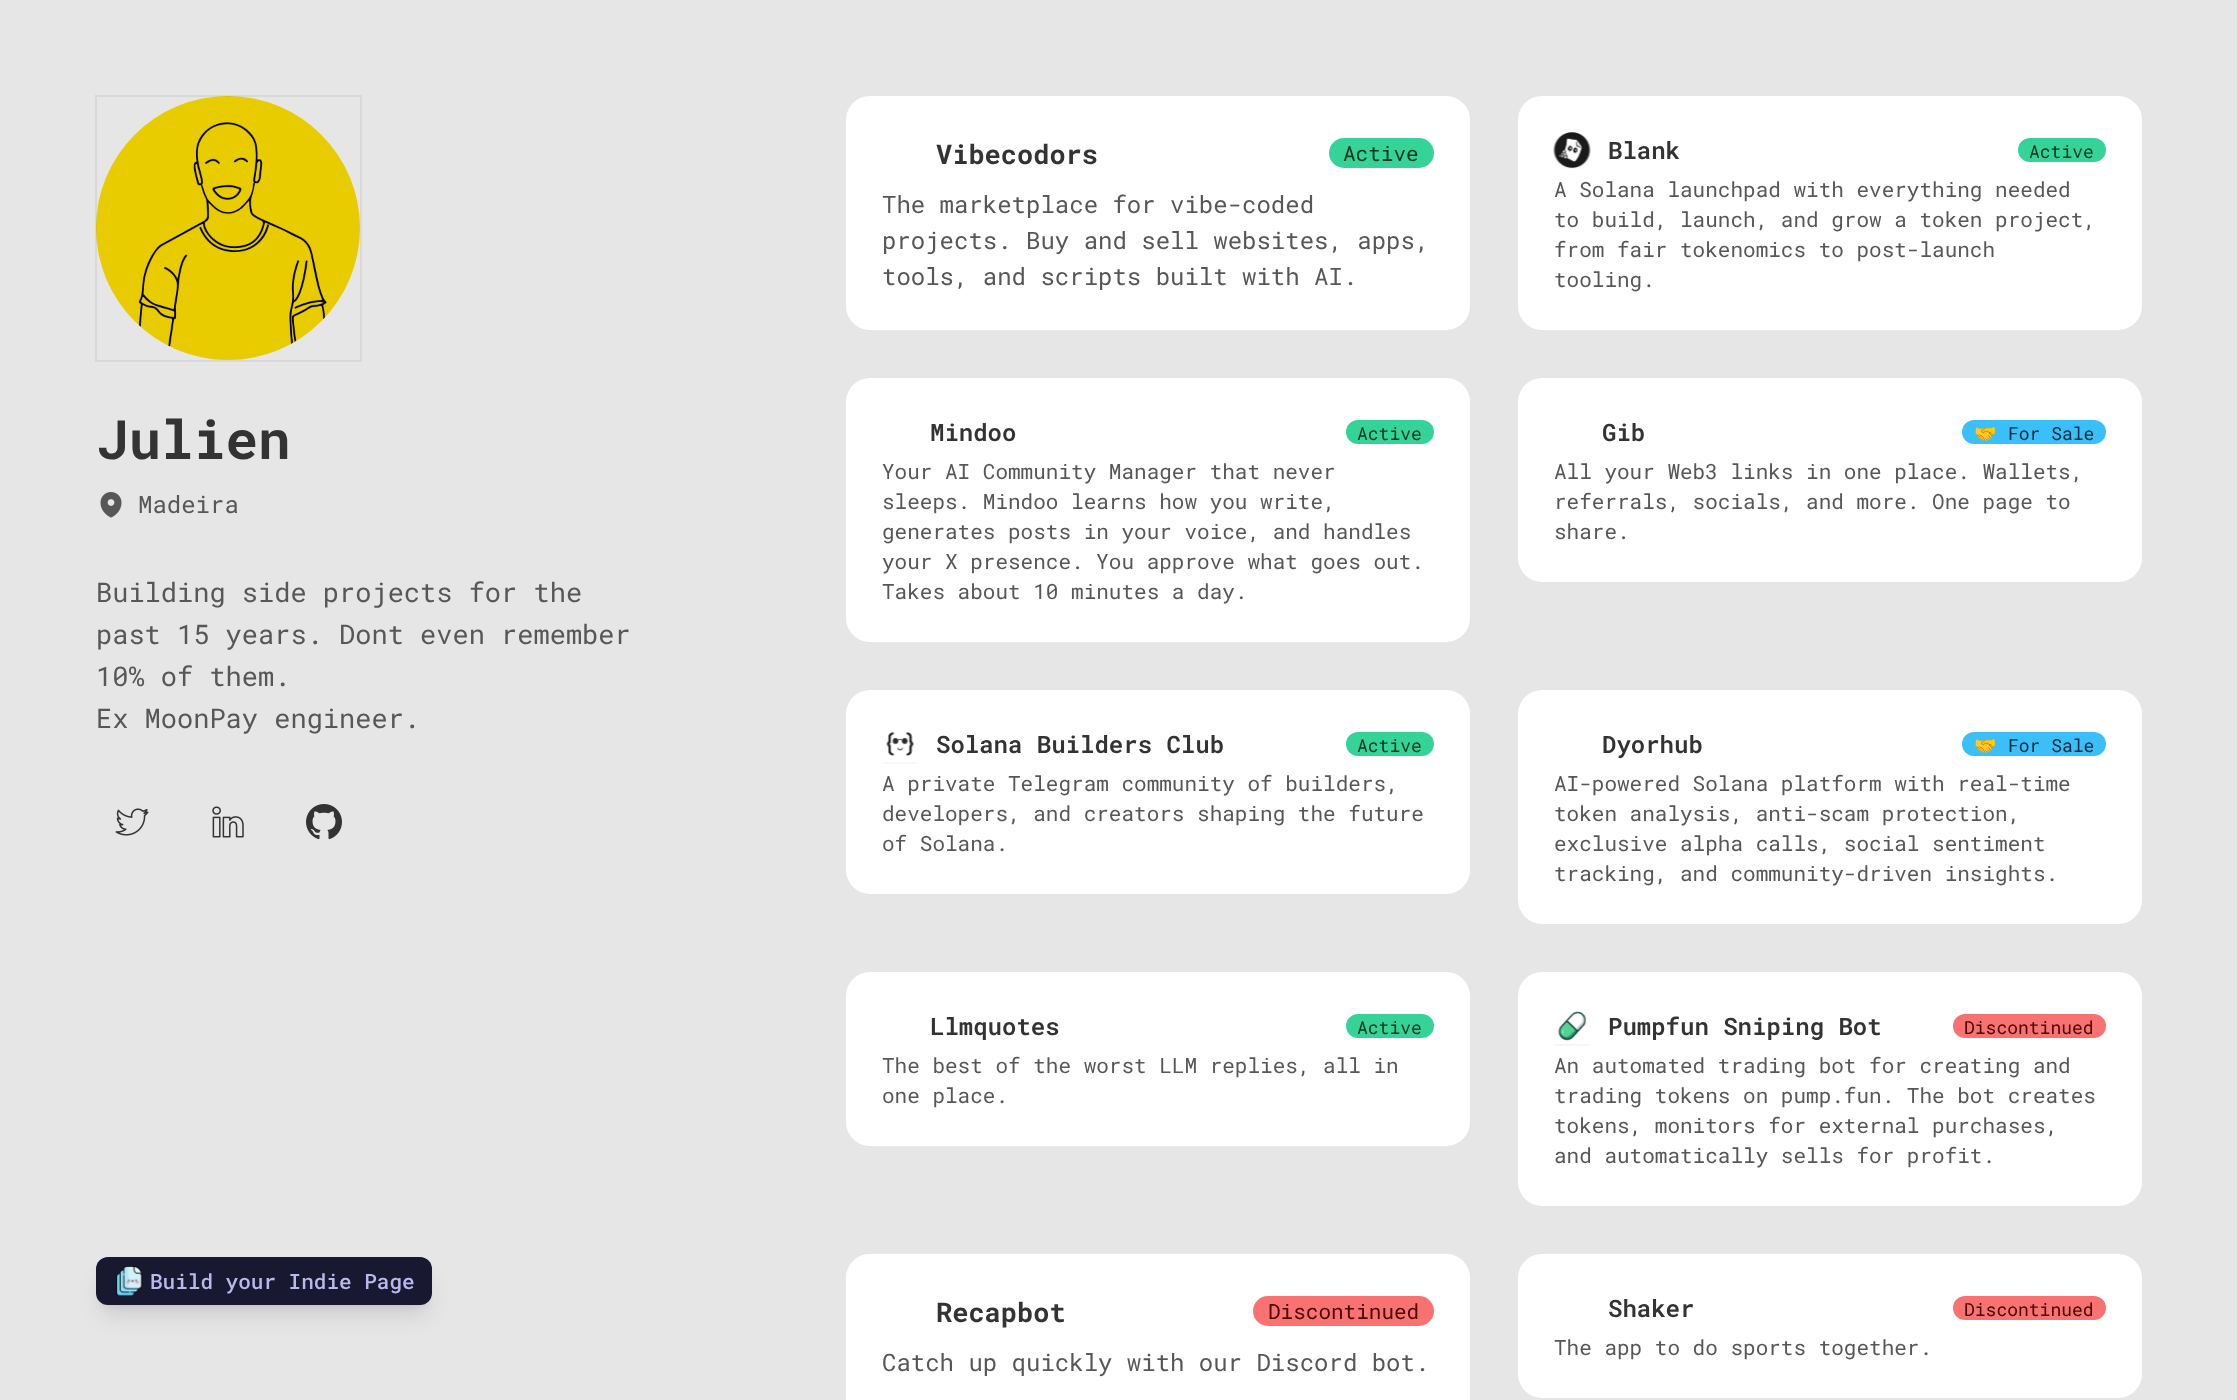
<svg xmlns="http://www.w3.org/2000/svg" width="2237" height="1400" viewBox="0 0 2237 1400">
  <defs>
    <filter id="blur1" x="-50%" y="-200%" width="200%" height="500%"><feGaussianBlur stdDeviation="4.5"/></filter>
    <filter id="blur2" x="-50%" y="-200%" width="200%" height="500%"><feGaussianBlur stdDeviation="11"/></filter>
  </defs>
  <rect width="100%" height="100%" fill="#e6e6e6"/>
  <image x="96" y="96" width="264" height="264" href="img1.png"/>
  <rect x="96" y="96" width="265" height="265" fill="none" stroke="#000000" stroke-opacity="0.06" stroke-width="2"/>
  <text x="96" y="459" font-family="Roboto Mono" font-size="54" font-weight="bold" fill="#333333">Julien</text>
  <image x="100" y="492" width="22" height="26" href="img2.png"/>
  <text x="138" y="513" font-family="Roboto Mono" font-size="24" fill="#575757">Madeira</text>
  <text x="96" y="602" font-family="Roboto Mono" font-size="27" fill="#575757">Building side projects for the</text>
  <text x="96" y="644" font-family="Roboto Mono" font-size="27" fill="#575757">past 15 years. Dont even remember</text>
  <text x="96" y="686" font-family="Roboto Mono" font-size="27" fill="#575757">10% of them.</text>
  <text x="96" y="728" font-family="Roboto Mono" font-size="27" fill="#575757">Ex MoonPay engineer.</text>
  <image x="115" y="808" width="34" height="28" href="img3.png"/>
  <image x="212" y="806" width="32" height="32" href="img4.png"/>
  <image x="306" y="804" width="36" height="36" href="img5.png"/>
  <rect x="846" y="96" width="624" height="234" rx="24" fill="#ffffff"/>
  <text x="936" y="164" font-family="Roboto Mono" font-size="27" font-weight="bold" fill="#333333">Vibecodors</text>
  <rect x="1329" y="138" width="105" height="30" rx="15" fill="#36d399"/>
  <text x="1343" y="161" font-family="Roboto Mono" font-size="21" fill="#003320">Active</text>
  <text x="882" y="213" font-family="Roboto Mono" font-size="24" fill="#575757">The marketplace for vibe-coded</text>
  <text x="882" y="249" font-family="Roboto Mono" font-size="24" fill="#575757">projects. Buy and sell websites, apps,</text>
  <text x="882" y="285" font-family="Roboto Mono" font-size="24" fill="#575757">tools, and scripts built with AI.</text>
  <rect x="1518" y="96" width="624" height="234" rx="24" fill="#ffffff"/>
  <image x="1553" y="132" width="38" height="37" href="img6.png"/>
  <text x="1608" y="159" font-family="Roboto Mono" font-size="24" font-weight="600" fill="#333333">Blank</text>
  <rect x="2018" y="138" width="88" height="24" rx="12" fill="#36d399"/>
  <text x="2029" y="158" font-family="Roboto Mono" font-size="18" fill="#003320">Active</text>
  <text x="1554" y="197" font-family="Roboto Mono" font-size="21" fill="#575757">A Solana launchpad with everything needed</text>
  <text x="1554" y="227" font-family="Roboto Mono" font-size="21" fill="#575757">to build, launch, and grow a token project,</text>
  <text x="1554" y="257" font-family="Roboto Mono" font-size="21" fill="#575757">from fair tokenomics to post-launch</text>
  <text x="1554" y="287" font-family="Roboto Mono" font-size="21" fill="#575757">tooling.</text>
  <rect x="846" y="378" width="624" height="264" rx="24" fill="#ffffff"/>
  <text x="930" y="441" font-family="Roboto Mono" font-size="24" font-weight="600" fill="#333333">Mindoo</text>
  <rect x="1346" y="420" width="88" height="24" rx="12" fill="#36d399"/>
  <text x="1357" y="440" font-family="Roboto Mono" font-size="18" fill="#003320">Active</text>
  <text x="882" y="479" font-family="Roboto Mono" font-size="21" fill="#575757">Your AI Community Manager that never</text>
  <text x="882" y="509" font-family="Roboto Mono" font-size="21" fill="#575757">sleeps. Mindoo learns how you write,</text>
  <text x="882" y="539" font-family="Roboto Mono" font-size="21" fill="#575757">generates posts in your voice, and handles</text>
  <text x="882" y="569" font-family="Roboto Mono" font-size="21" fill="#575757">your X presence. You approve what goes out.</text>
  <text x="882" y="599" font-family="Roboto Mono" font-size="21" fill="#575757">Takes about 10 minutes a day.</text>
  <rect x="1518" y="378" width="624" height="204" rx="24" fill="#ffffff"/>
  <text x="1602" y="441" font-family="Roboto Mono" font-size="24" font-weight="600" fill="#333333">Gib</text>
  <rect x="1962" y="420" width="144" height="24" rx="12" fill="#3abff8"/>
  <text x="1974" y="440" font-family="Noto Color Emoji" font-size="18" fill="#002b3d">🤝</text>
  <text x="2008" y="440" font-family="Roboto Mono" font-size="18" fill="#002b3d">For Sale</text>
  <text x="1554" y="479" font-family="Roboto Mono" font-size="21" fill="#575757">All your Web3 links in one place. Wallets,</text>
  <text x="1554" y="509" font-family="Roboto Mono" font-size="21" fill="#575757">referrals, socials, and more. One page to</text>
  <text x="1554" y="539" font-family="Roboto Mono" font-size="21" fill="#575757">share.</text>
  <rect x="846" y="690" width="624" height="204" rx="24" fill="#ffffff"/>
  <image x="882" y="732" width="36" height="32" href="img7.png"/>
  <text x="936" y="753" font-family="Roboto Mono" font-size="24" font-weight="600" fill="#333333">Solana Builders Club</text>
  <rect x="1346" y="732" width="88" height="24" rx="12" fill="#36d399"/>
  <text x="1357" y="752" font-family="Roboto Mono" font-size="18" fill="#003320">Active</text>
  <text x="882" y="791" font-family="Roboto Mono" font-size="21" fill="#575757">A private Telegram community of builders,</text>
  <text x="882" y="821" font-family="Roboto Mono" font-size="21" fill="#575757">developers, and creators shaping the future</text>
  <text x="882" y="851" font-family="Roboto Mono" font-size="21" fill="#575757">of Solana.</text>
  <rect x="1518" y="690" width="624" height="234" rx="24" fill="#ffffff"/>
  <text x="1602" y="753" font-family="Roboto Mono" font-size="24" font-weight="600" fill="#333333">Dyorhub</text>
  <rect x="1962" y="732" width="144" height="24" rx="12" fill="#3abff8"/>
  <text x="1974" y="752" font-family="Noto Color Emoji" font-size="18" fill="#002b3d">🤝</text>
  <text x="2008" y="752" font-family="Roboto Mono" font-size="18" fill="#002b3d">For Sale</text>
  <text x="1554" y="791" font-family="Roboto Mono" font-size="21" fill="#575757">AI-powered Solana platform with real-time</text>
  <text x="1554" y="821" font-family="Roboto Mono" font-size="21" fill="#575757">token analysis, anti-scam protection,</text>
  <text x="1554" y="851" font-family="Roboto Mono" font-size="21" fill="#575757">exclusive alpha calls, social sentiment</text>
  <text x="1554" y="881" font-family="Roboto Mono" font-size="21" fill="#575757">tracking, and community-driven insights.</text>
  <rect x="846" y="972" width="624" height="174" rx="24" fill="#ffffff"/>
  <text x="930" y="1035" font-family="Roboto Mono" font-size="24" font-weight="600" fill="#333333">Llmquotes</text>
  <rect x="1346" y="1014" width="88" height="24" rx="12" fill="#36d399"/>
  <text x="1357" y="1034" font-family="Roboto Mono" font-size="18" fill="#003320">Active</text>
  <text x="882" y="1073" font-family="Roboto Mono" font-size="21" fill="#575757">The best of the worst LLM replies, all in</text>
  <text x="882" y="1103" font-family="Roboto Mono" font-size="21" fill="#575757">one place.</text>
  <rect x="1518" y="972" width="624" height="234" rx="24" fill="#ffffff"/>
  <image x="1554" y="1011" width="36" height="35" href="img8.png"/>
  <text x="1608" y="1035" font-family="Roboto Mono" font-size="24" font-weight="600" fill="#333333">Pumpfun Sniping Bot</text>
  <rect x="1953" y="1014" width="153" height="24" rx="12" fill="#f87272"/>
  <text x="1964" y="1034" font-family="Roboto Mono" font-size="18" fill="#470000">Discontinued</text>
  <text x="1554" y="1073" font-family="Roboto Mono" font-size="21" fill="#575757">An automated trading bot for creating and</text>
  <text x="1554" y="1103" font-family="Roboto Mono" font-size="21" fill="#575757">trading tokens on pump.fun. The bot creates</text>
  <text x="1554" y="1133" font-family="Roboto Mono" font-size="21" fill="#575757">tokens, monitors for external purchases,</text>
  <text x="1554" y="1163" font-family="Roboto Mono" font-size="21" fill="#575757">and automatically sells for profit.</text>
  <path d="M870 1254H1446C1459.5 1254 1470 1264.5 1470 1278V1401H846V1278C846 1264.5 856.5 1254 870 1254Z" fill="#ffffff"/>
  <text x="936" y="1322" font-family="Roboto Mono" font-size="27" font-weight="bold" fill="#333333">Recapbot</text>
  <rect x="1253" y="1296" width="181" height="30" rx="15" fill="#f87272"/>
  <text x="1268" y="1319" font-family="Roboto Mono" font-size="21" fill="#470000">Discontinued</text>
  <text x="882" y="1371" font-family="Roboto Mono" font-size="24" fill="#575757">Catch up quickly with our Discord bot.</text>
  <rect x="1518" y="1254" width="624" height="144" rx="24" fill="#ffffff"/>
  <text x="1608" y="1317" font-family="Roboto Mono" font-size="24" font-weight="600" fill="#333333">Shaker</text>
  <rect x="1953" y="1296" width="153" height="24" rx="12" fill="#f87272"/>
  <text x="1964" y="1316" font-family="Roboto Mono" font-size="18" fill="#470000">Discontinued</text>
  <text x="1554" y="1355" font-family="Roboto Mono" font-size="21" fill="#575757">The app to do sports together.</text>
  <rect x="102" y="1269" width="324" height="36" rx="6" fill="#000000" fill-opacity="0.1" filter="url(#blur1)"/>
  <rect x="101" y="1277" width="327" height="39" rx="8" fill="#000000" fill-opacity="0.1" filter="url(#blur2)"/>
  <rect x="96" y="1257" width="336" height="48" rx="12" fill="#181830"/>
  <image x="116" y="1266" width="27" height="30" href="img9.png"/>
  <text x="150" y="1289" font-family="Roboto Mono" font-size="21" font-weight="500" fill="#b9b9ee">Build your Indie Page</text>
</svg>
